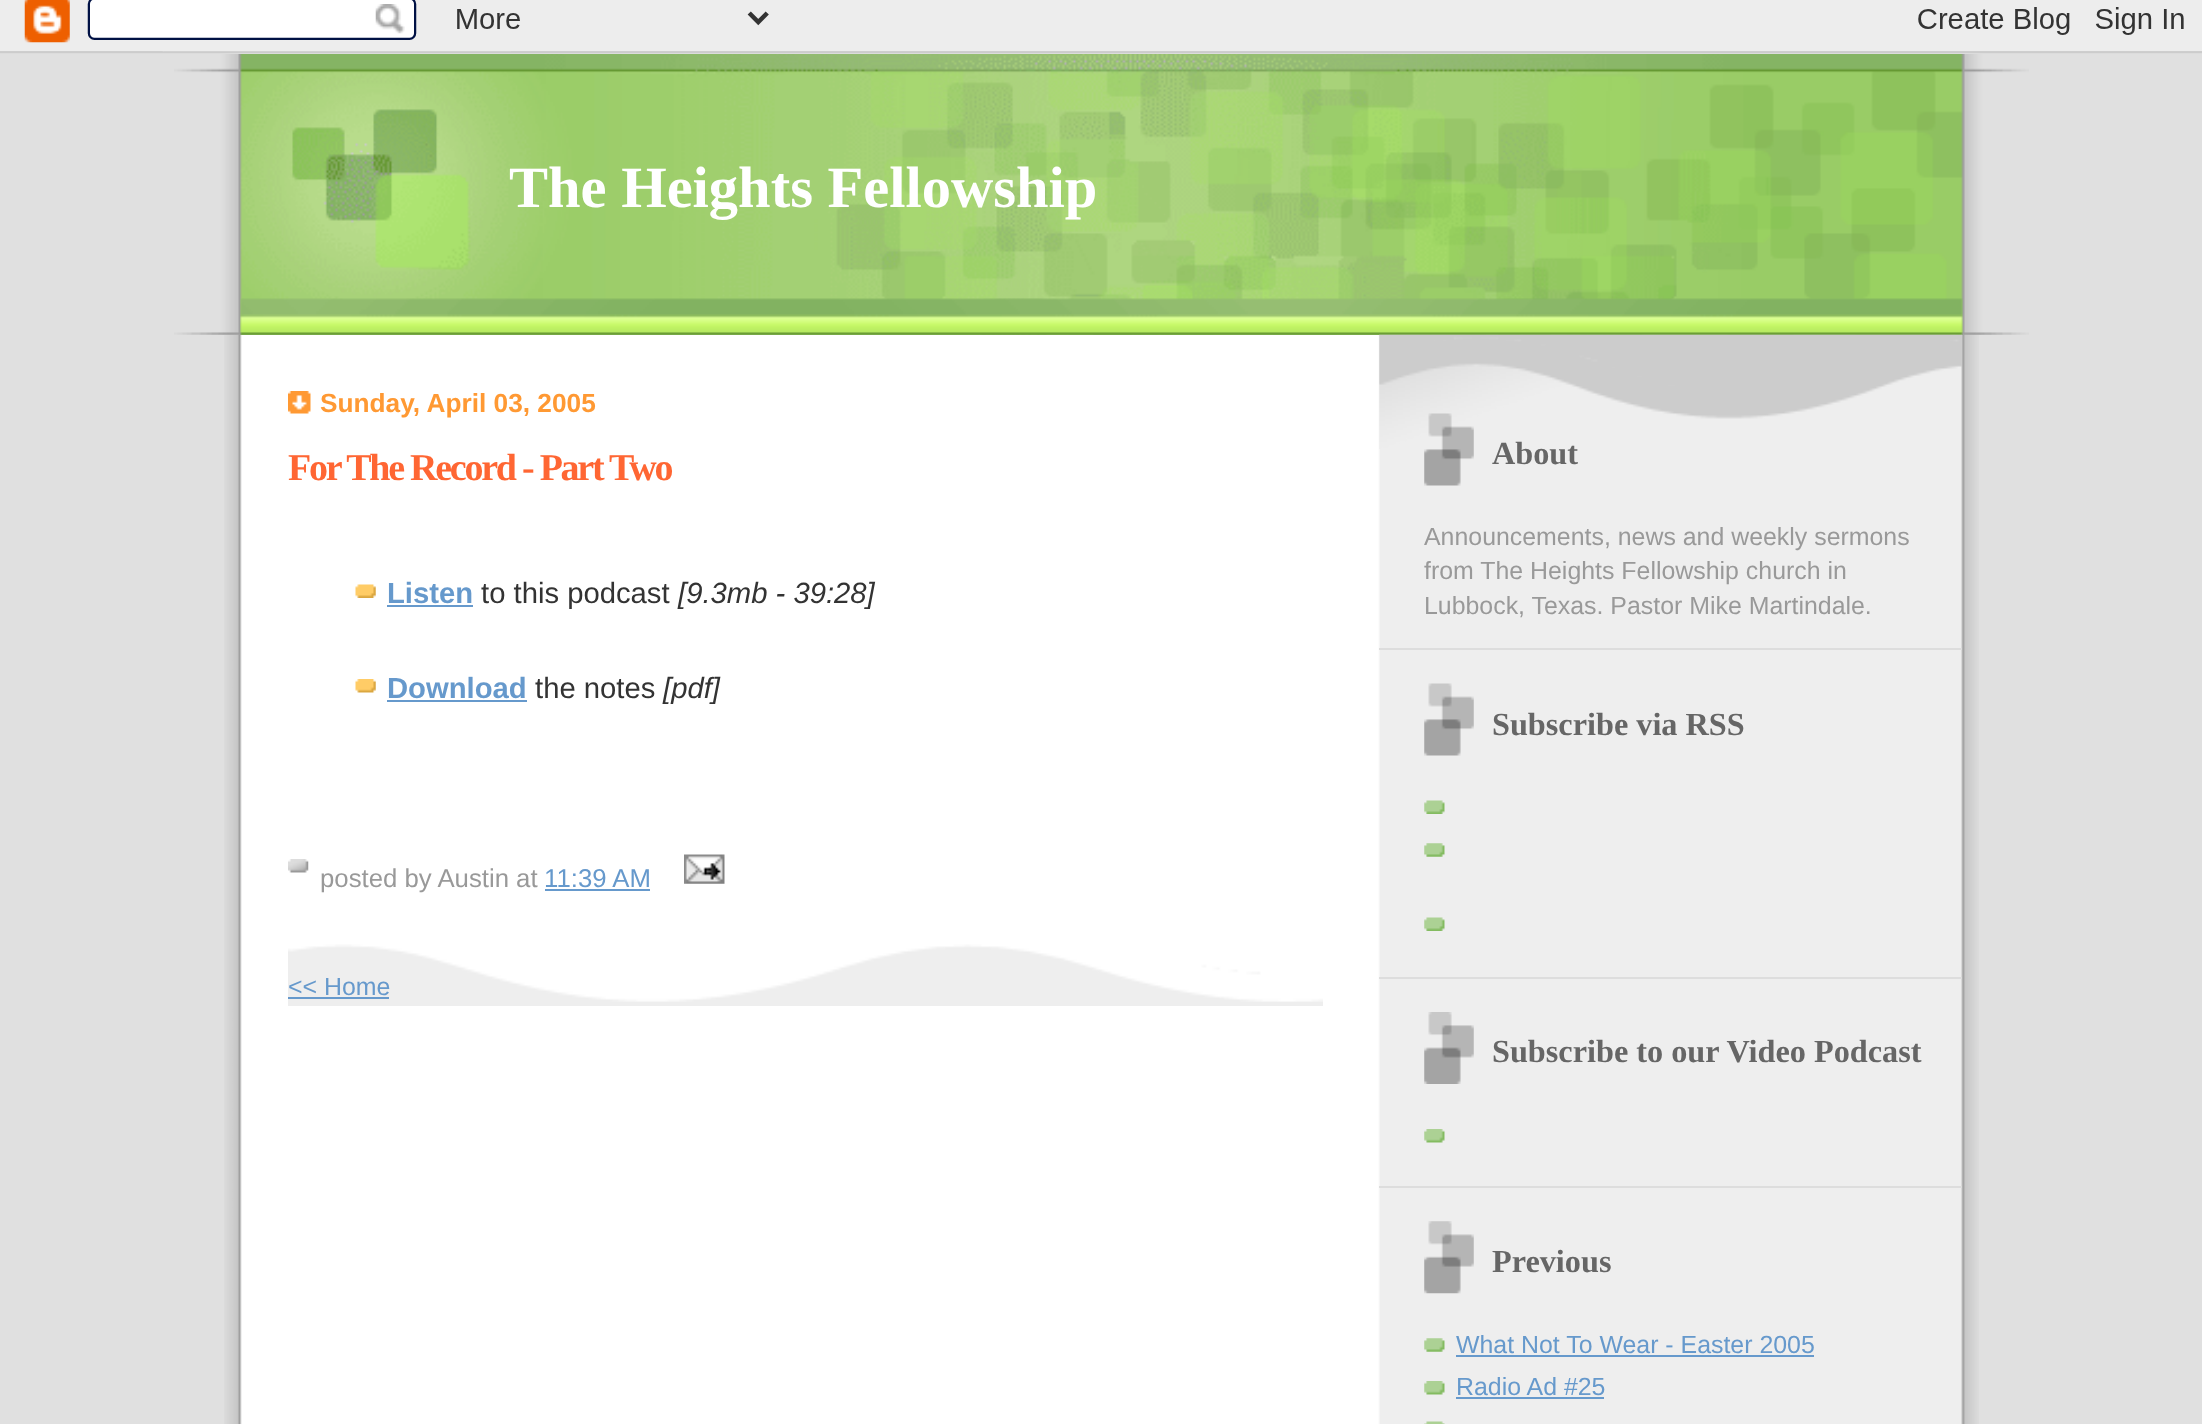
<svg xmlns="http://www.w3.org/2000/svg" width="2202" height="1424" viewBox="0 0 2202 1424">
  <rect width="100%" height="100%" fill="#e0e0e0"/>
  <image x="0" y="0" width="2202" height="54" href="img1.png"/>
  <image x="224" y="335" width="1755" height="1089" href="img2.png"/>
  <image x="174" y="54" width="1855" height="281" href="img3.png"/>
  <image x="174" y="298" width="1855" height="37" href="img4.png"/>
  <text x="509" y="207" font-family="Liberation Serif" font-size="58.5" font-weight="bold" fill="#ffffff">The Heights Fellowship</text>
  <image x="288" y="391" width="23" height="23" href="img5.png"/>
  <text x="320" y="412" font-family="Liberation Sans" font-size="26.25" font-weight="bold" fill="#ff9933">Sunday, April 03, 2005</text>
  <text x="288" y="480" font-family="Liberation Serif" font-size="38" font-weight="bold" letter-spacing="-2.25" fill="#ff6633">For The Record - Part Two</text>
  <image x="355" y="584" width="21" height="14" href="img6.png"/>
  <text x="387" y="603" font-family="Liberation Sans" font-size="29.25" font-weight="bold" fill="#6699cc">Listen</text>
  <rect x="387" y="605" width="86" height="2" fill="#6699cc"/>
  <text x="481" y="603" font-family="Liberation Sans" font-size="29.25" fill="#333333">to this podcast</text>
  <text x="678" y="603" font-family="Liberation Sans" font-size="29.25" font-style="italic" fill="#333333">[9.3mb - 39:28]</text>
  <image x="355" y="679" width="21" height="14" href="img7.png"/>
  <text x="387" y="698" font-family="Liberation Sans" font-size="29.25" font-weight="bold" fill="#6699cc">Download</text>
  <rect x="387" y="700" width="140" height="2" fill="#6699cc"/>
  <text x="535" y="698" font-family="Liberation Sans" font-size="29.25" fill="#333333">the notes</text>
  <text x="663" y="698" font-family="Liberation Sans" font-size="29.25" font-style="italic" fill="#333333">[pdf]</text>
  <image x="288" y="859" width="21" height="14" href="img8.png"/>
  <text x="320" y="887" font-family="Liberation Sans" font-size="25.75" fill="#999999">posted by Austin at</text>
  <text x="544" y="887" font-family="Liberation Sans" font-size="25.75" fill="#6699cc">11:39 AM</text>
  <rect x="545" y="889" width="105" height="2" fill="#6699cc"/>
  <image x="684" y="854" width="41" height="30" href="img9.png"/>
  <rect x="288" y="946" width="1035" height="60" fill="#eeeeee"/>
  <image x="288" y="944" width="1035" height="58" href="img10.png"/>
  <text x="288" y="995" font-family="Liberation Sans" font-size="24.9" fill="#6699cc">&lt;&lt; Home</text>
  <rect x="288" y="997" width="101" height="2" fill="#6699cc"/>
  <image x="1379" y="334" width="583" height="115" href="img11.png"/>
  <image x="1424" y="413" width="50" height="73" href="img12.png"/>
  <text x="1492" y="464" font-family="Liberation Serif" font-size="32.25" font-weight="bold" fill="#666666">About</text>
  <rect x="1379" y="648" width="583" height="2" fill="#dddddd"/>
  <text x="1424" y="545" font-family="Liberation Sans" font-size="24.9" fill="#999999">Announcements, news and weekly sermons</text>
  <text x="1424" y="579" font-family="Liberation Sans" font-size="24.9" fill="#999999">from The Heights Fellowship church in</text>
  <text x="1424" y="614" font-family="Liberation Sans" font-size="24.9" fill="#999999">Lubbock, Texas. Pastor Mike Martindale.</text>
  <image x="1424" y="683" width="50" height="73" href="img13.png"/>
  <text x="1492" y="735" font-family="Liberation Serif" font-size="32.25" font-weight="bold" fill="#666666">Subscribe via RSS</text>
  <rect x="1379" y="977" width="583" height="2" fill="#dddddd"/>
  <image x="1424" y="800" width="21" height="14" href="img14.png"/>
  <image x="1424" y="843" width="21" height="14" href="img15.png"/>
  <image x="1424" y="917" width="21" height="14" href="img14.png"/>
  <image x="1424" y="1012" width="50" height="72" href="img16.png"/>
  <text x="1492" y="1062" font-family="Liberation Serif" font-size="32.25" font-weight="bold" fill="#666666">Subscribe to our Video Podcast</text>
  <rect x="1379" y="1186" width="583" height="2" fill="#dddddd"/>
  <image x="1424" y="1129" width="21" height="14" href="img17.png"/>
  <image x="1424" y="1221" width="50" height="73" href="img18.png"/>
  <text x="1492" y="1272" font-family="Liberation Serif" font-size="32.25" font-weight="bold" fill="#666666">Previous</text>
  <image x="1424" y="1338" width="21" height="14" href="img15.png"/>
  <text x="1456" y="1353" font-family="Liberation Sans" font-size="24.9" fill="#6699cc">What Not To Wear - Easter 2005</text>
  <rect x="1456" y="1355" width="358" height="2" fill="#6699cc"/>
  <image x="1424" y="1381" width="21" height="14" href="img17.png"/>
  <text x="1456" y="1395" font-family="Liberation Sans" font-size="24.9" fill="#6699cc">Radio Ad #25</text>
  <rect x="1456" y="1397" width="148" height="2" fill="#6699cc"/>
  <image x="1424" y="1421" width="21" height="3" href="img19.png"/>
</svg>
